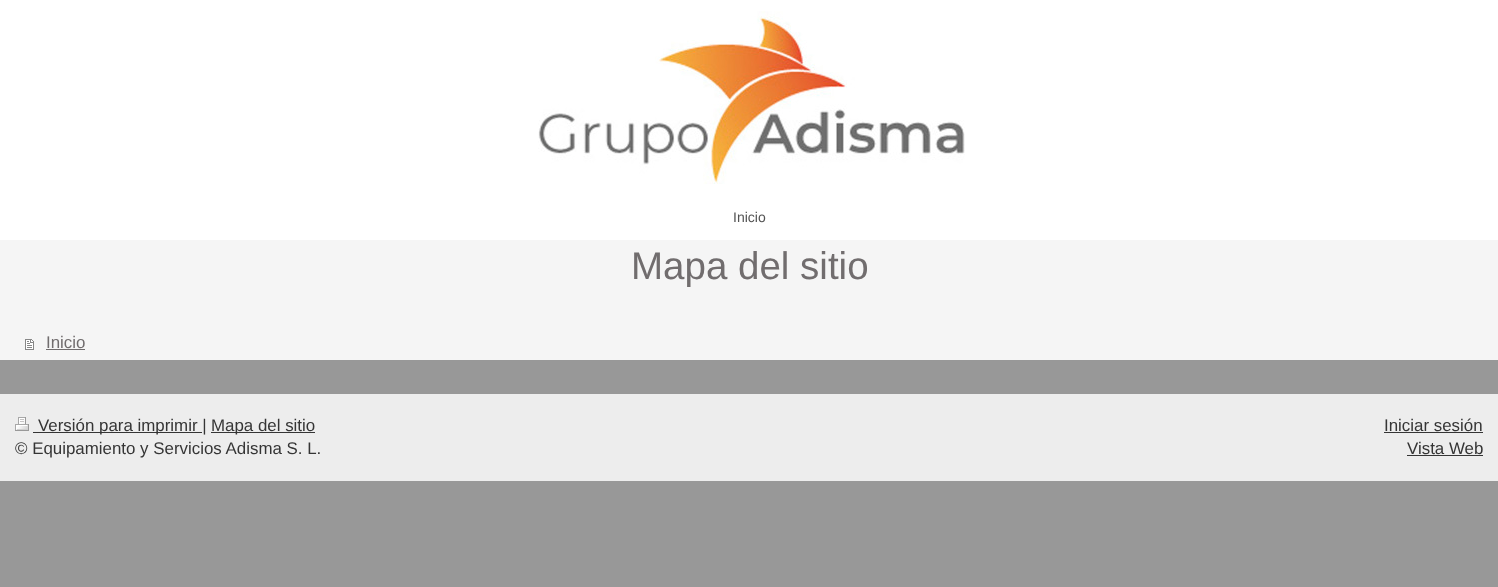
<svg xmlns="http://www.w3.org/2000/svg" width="1498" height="587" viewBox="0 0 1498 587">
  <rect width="100%" height="100%" fill="#989898"/>
  <rect x="0" y="0" width="1498" height="240" fill="#ffffff"/>
  <image x="538" y="11" width="427" height="173" href="img1.png"/>
  <text x="733" y="222" font-family="Liberation Sans" font-size="14" fill="#535353">Inicio</text>
  <rect x="0" y="240" width="1498" height="120" fill="#f5f5f5"/>
  <text x="631" y="279" font-family="Liberation Sans" font-size="38.5" fill="#716d6e">Mapa del sitio</text>
  <image x="25" y="339" width="9" height="11" href="img2.png"/>
  <text x="46" y="348" font-family="Liberation Sans" font-size="16.9" fill="#716d6e">Inicio</text>
  <rect x="46" y="349" width="39" height="1" fill="#716d6e"/>
  <rect x="0" y="394" width="1498" height="87" fill="#ededed"/>
  <image x="15" y="417" width="14" height="14" href="img3.png"/>
  <rect x="33" y="432" width="169" height="1" fill="#353535"/>
  <text x="38" y="431" font-family="Liberation Sans" font-size="16.9" fill="#353535">Versión para imprimir |</text>
  <rect x="211" y="432" width="104" height="1" fill="#353535"/>
  <text x="211" y="431" font-family="Liberation Sans" font-size="16.9" fill="#353535">Mapa del sitio</text>
  <text x="15" y="454" font-family="Liberation Sans" font-size="16.9" fill="#353535">© Equipamiento y Servicios Adisma S. L.</text>
  <text x="1384" y="431" font-family="Liberation Sans" font-size="16.9" fill="#353535">Iniciar sesión</text>
  <rect x="1384" y="432" width="99" height="1" fill="#353535"/>
  <text x="1407" y="454" font-family="Liberation Sans" font-size="16.9" fill="#353535">Vista Web</text>
  <rect x="1407" y="455" width="76" height="1" fill="#353535"/>
</svg>
